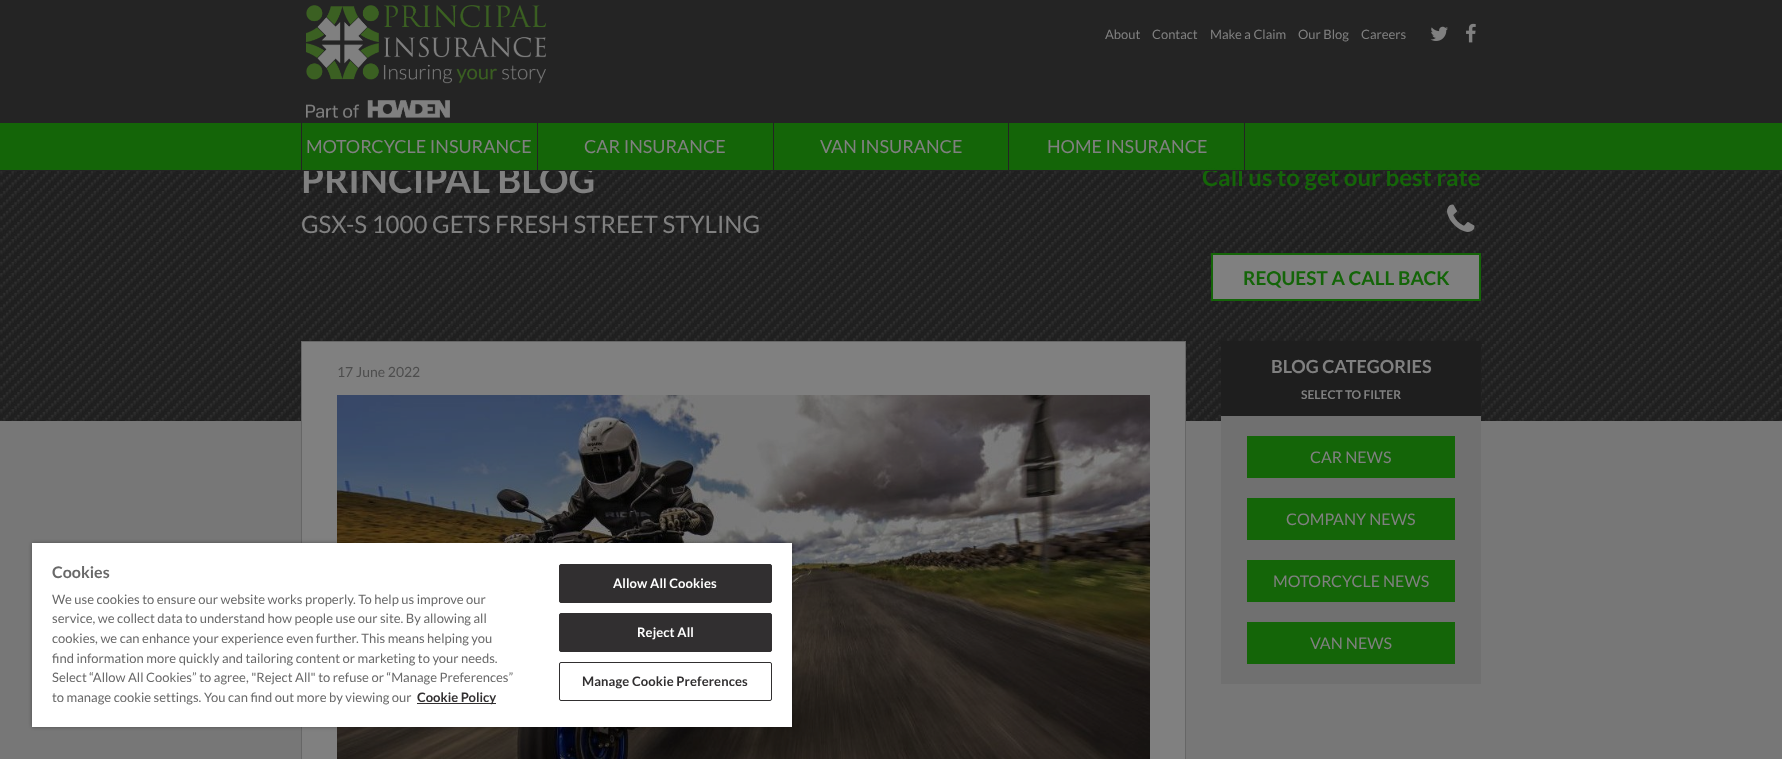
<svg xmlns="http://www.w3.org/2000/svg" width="1782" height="759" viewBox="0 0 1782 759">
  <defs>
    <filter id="blur1" x="-50%" y="-200%" width="200%" height="500%"><feGaussianBlur stdDeviation="2"/></filter>
  </defs>
  <rect width="100%" height="100%" fill="#777777"/>
  <image x="0" y="171" width="1782" height="250" href="img1.png"/>
  <rect x="0" y="0" width="1782" height="123" fill="#242424"/>
  <image x="306" y="5" width="240" height="113" href="img2.png"/>
  <text x="1105" y="39" font-family="Lato" font-size="13" fill="#808080">About</text>
  <text x="1152" y="39" font-family="Lato" font-size="13" fill="#808080">Contact</text>
  <text x="1210" y="39" font-family="Lato" font-size="13" fill="#808080">Make a Claim</text>
  <text x="1298" y="39" font-family="Lato" font-size="13" fill="#808080">Our Blog</text>
  <text x="1361" y="39" font-family="Lato" font-size="13" fill="#808080">Careers</text>
  <image x="1430" y="26" width="18" height="15" href="img3.png"/>
  <image x="1466" y="23" width="10" height="20" href="img4.png"/>
  <text x="301" y="193" font-family="Lato" font-size="37" font-weight="bold" fill="#808080">PRINCIPAL BLOG</text>
  <rect x="0" y="123" width="1782" height="47" fill="#146508"/>
  <text x="1202" y="186" font-family="Lato" font-size="24" font-weight="bold" fill="#146508">Call us to get our best rate</text>
  <rect x="0" y="170" width="1782" height="1" fill="#242424"/>
  <rect x="301" y="123" width="1" height="47" fill="#242424"/>
  <rect x="537" y="123" width="1" height="47" fill="#242424"/>
  <text x="306" y="153" font-family="Lato" font-size="18" fill="#808080">MOTORCYCLE INSURANCE</text>
  <rect x="773" y="123" width="1" height="47" fill="#242424"/>
  <text x="584" y="153" font-family="Lato" font-size="18" fill="#808080">CAR INSURANCE</text>
  <rect x="1008" y="123" width="1" height="47" fill="#242424"/>
  <text x="820" y="153" font-family="Lato" font-size="18" fill="#808080">VAN INSURANCE</text>
  <rect x="1244" y="123" width="1" height="47" fill="#242424"/>
  <text x="1047" y="153" font-family="Lato" font-size="18" fill="#808080">HOME INSURANCE</text>
  <text x="301" y="233" font-family="Lato" font-size="24" fill="#808080">GSX-S 1000 GETS FRESH STREET STYLING</text>
  <image x="1447" y="204" width="28" height="28" href="img5.png"/>
  <rect x="1212" y="254" width="268" height="46" fill="#808080" stroke="#146508" stroke-width="2"/>
  <text x="1243" y="285" font-family="Lato" font-size="19" font-weight="bold" fill="#146508">REQUEST A CALL BACK</text>
  <rect x="301.5" y="341.5" width="884" height="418" fill="#808080" stroke="#666666"/>
  <text x="337" y="377" font-family="Lato" font-size="14" fill="#4d4d4d">17 June 2022</text>
  <image x="337" y="395" width="813" height="364" href="img6.png"/>
  <rect x="1221" y="341" width="260" height="75" fill="#1e1e1e"/>
  <text x="1271" y="373" font-family="Lato" font-size="18" font-weight="bold" fill="#808080">BLOG CATEGORIES</text>
  <text x="1301" y="399" font-family="Lato" font-size="12" font-weight="bold" fill="#808080">SELECT TO FILTER</text>
  <rect x="1221" y="416" width="260" height="268" fill="#707070"/>
  <rect x="1247" y="436" width="208" height="42" fill="#146508"/>
  <text x="1310" y="463" font-family="Lato" font-size="16" fill="#808080">CAR NEWS</text>
  <rect x="1247" y="498" width="208" height="42" fill="#146508"/>
  <text x="1286" y="525" font-family="Lato" font-size="16" fill="#808080">COMPANY NEWS</text>
  <rect x="1247" y="560" width="208" height="42" fill="#146508"/>
  <text x="1273" y="587" font-family="Lato" font-size="16" fill="#808080">MOTORCYCLE NEWS</text>
  <rect x="1247" y="622" width="208" height="42" fill="#146508"/>
  <text x="1310" y="649" font-family="Lato" font-size="16" fill="#808080">VAN NEWS</text>
  <rect x="32" y="543" width="760" height="184" fill="#000000" fill-opacity="0.35" filter="url(#blur1)"/>
  <rect x="32" y="543" width="760" height="184" fill="#ffffff"/>
  <text x="52" y="578" font-family="Lato" font-size="16" font-weight="bold" fill="#696969">Cookies</text>
  <text x="52" y="604" font-family="Lato" font-size="13" fill="#696969">We use cookies to ensure our website works properly. To help us improve our</text>
  <text x="52" y="623" font-family="Lato" font-size="13" fill="#696969">service, we collect data to understand how people use our site. By allowing all</text>
  <text x="52" y="643" font-family="Lato" font-size="13" fill="#696969">cookies, we can enhance your experience even further. This means helping you</text>
  <text x="52" y="663" font-family="Lato" font-size="13" fill="#696969">find information more quickly and tailoring content or marketing to your needs.</text>
  <text x="52" y="682" font-family="Lato" font-size="13" fill="#696969">Select “Allow All Cookies” to agree, "Reject All" to refuse or “Manage Preferences”</text>
  <text x="52" y="702" font-family="Lato" font-size="13" fill="#696969">to manage cookie settings. You can find out more by viewing our</text>
  <rect x="417" y="703" width="79" height="1" fill="#312f30"/>
  <text x="417" y="702" font-family="Lato" font-size="13" font-weight="bold" fill="#312f30">Cookie Policy</text>
  <rect x="559.5" y="564.5" width="212" height="38" rx="1.5" fill="#312f30" stroke="#312f30"/>
  <text x="613" y="588" font-family="Lato" font-size="13" font-weight="bold" letter-spacing="0.1" fill="#ffffff">Allow All Cookies</text>
  <rect x="559.5" y="613.5" width="212" height="38" rx="1.5" fill="#312f30" stroke="#312f30"/>
  <text x="637" y="637" font-family="Lato" font-size="13" font-weight="bold" letter-spacing="0.1" fill="#ffffff">Reject All</text>
  <rect x="559.5" y="662.5" width="212" height="38" rx="1.5" fill="none" stroke="#312f30"/>
  <text x="582" y="686" font-family="Lato" font-size="13" font-weight="bold" letter-spacing="0.1" fill="#312f30">Manage Cookie Preferences</text>
</svg>
